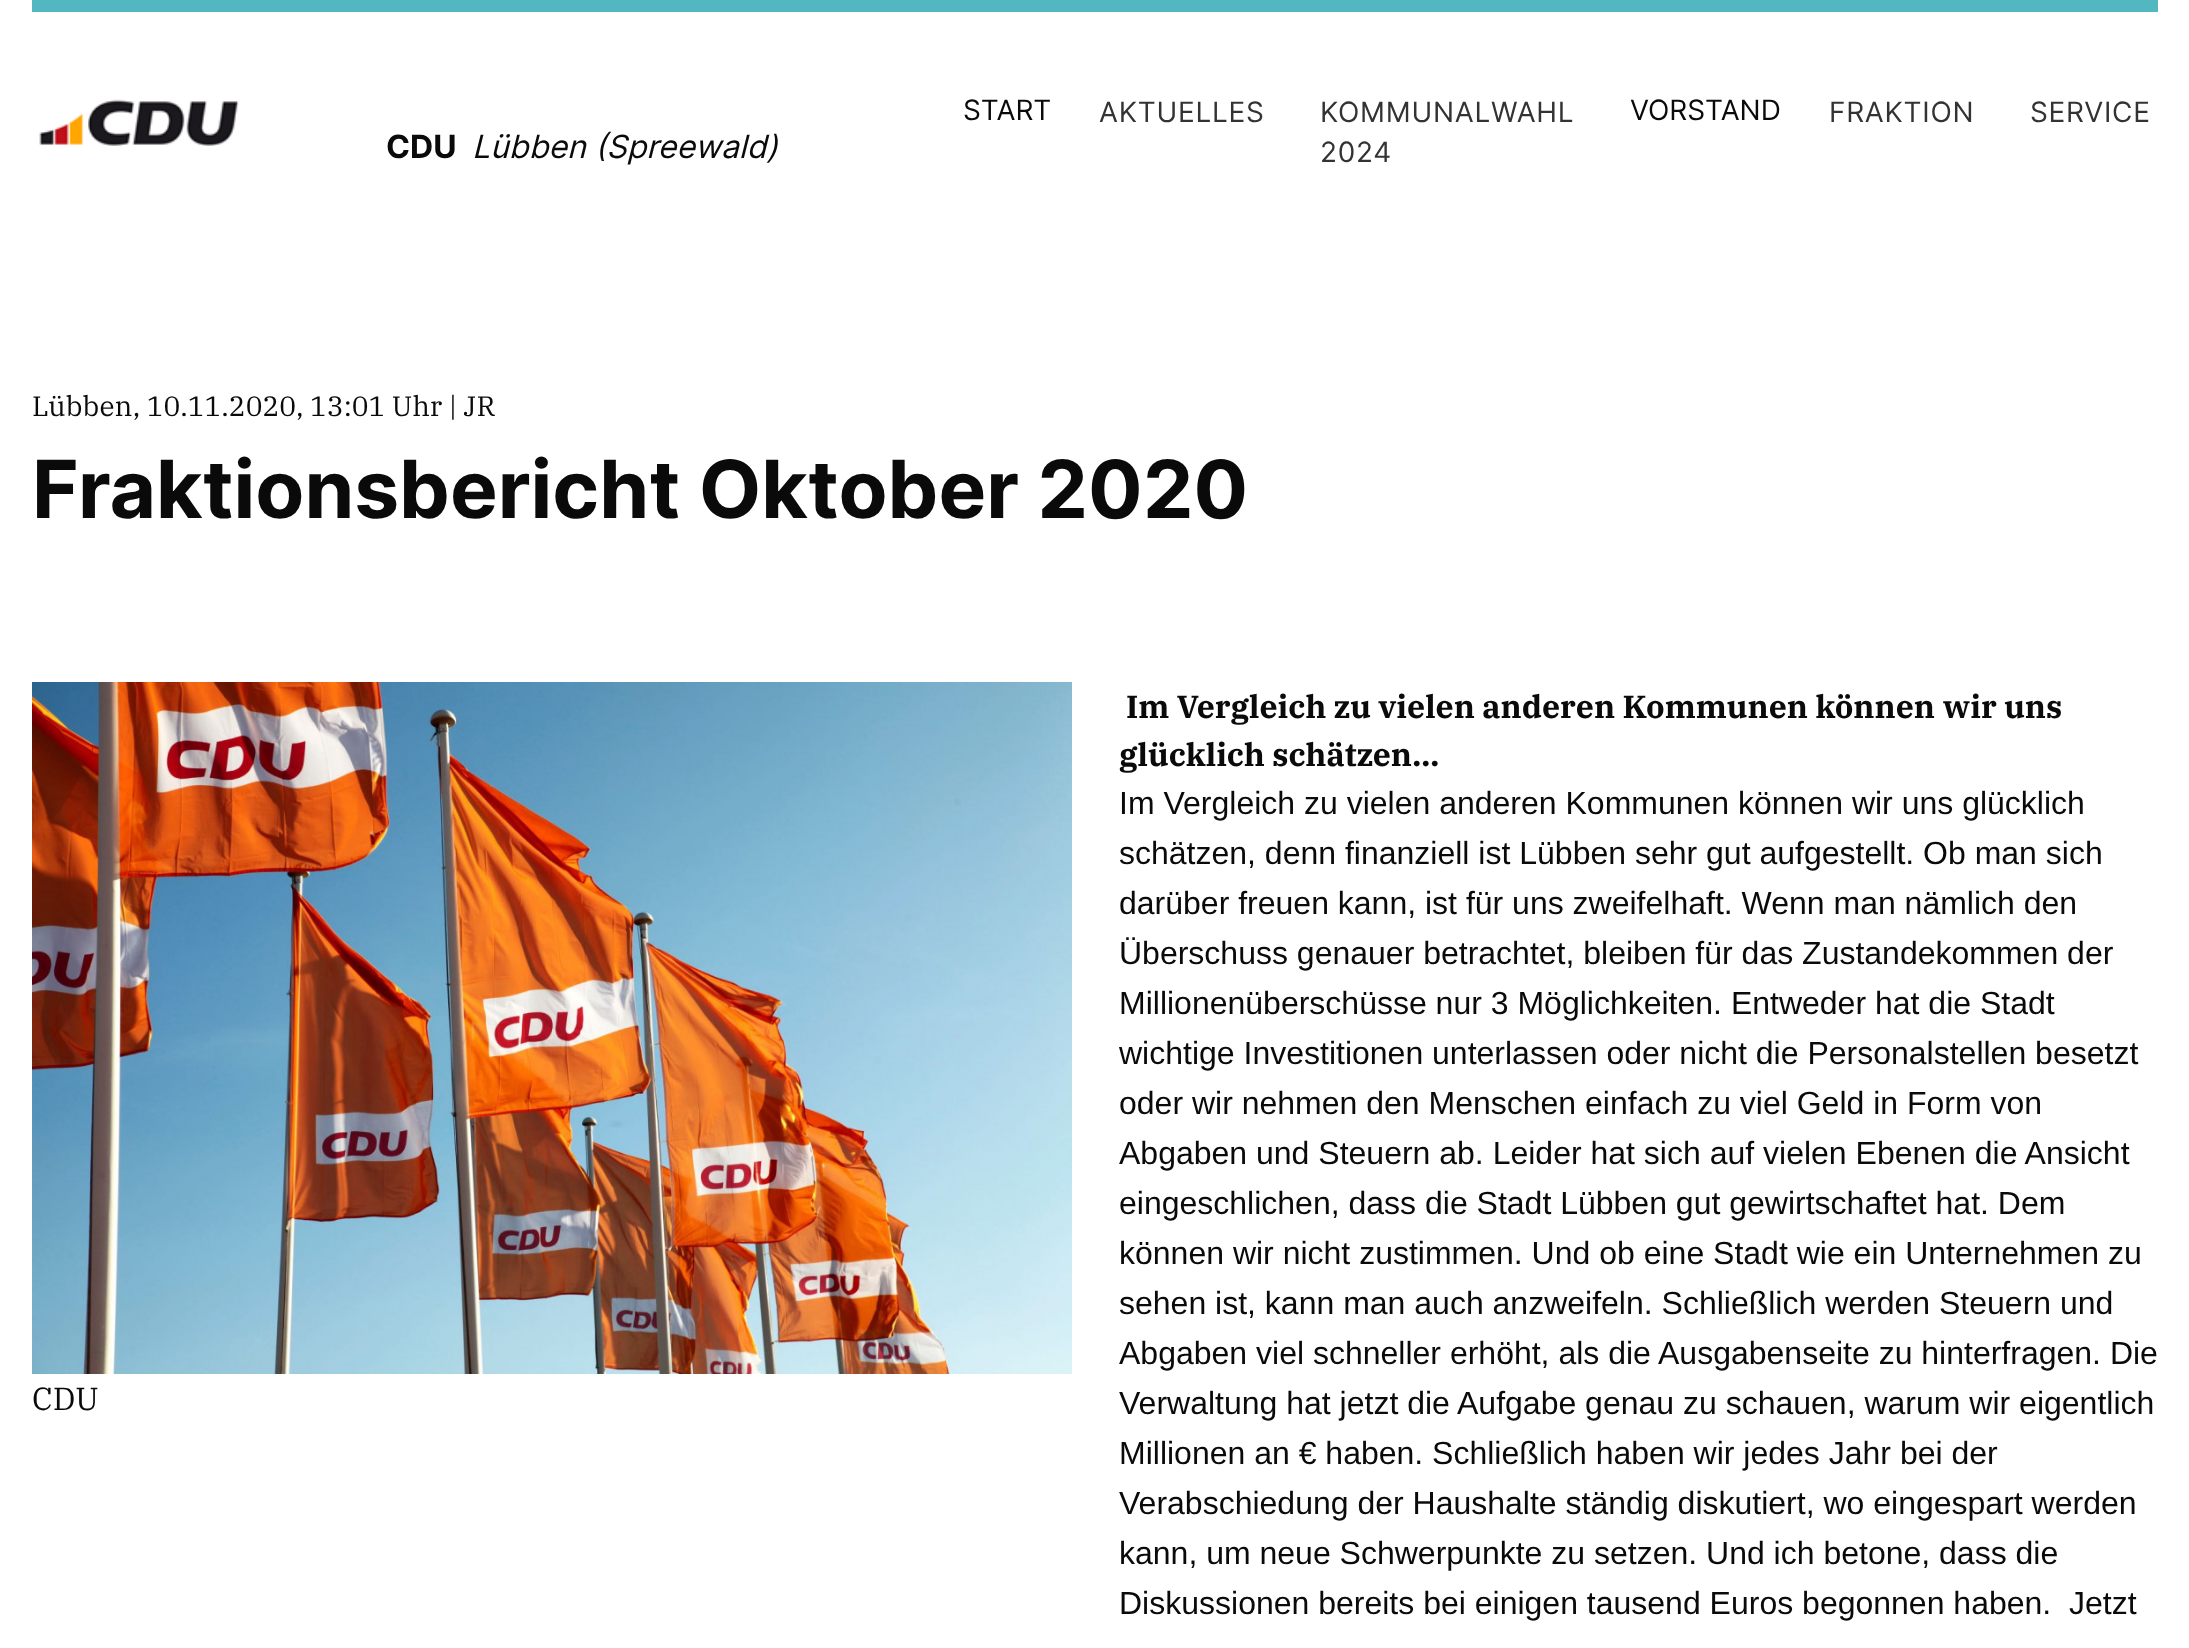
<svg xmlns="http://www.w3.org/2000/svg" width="2189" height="1648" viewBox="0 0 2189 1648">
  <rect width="100%" height="100%" fill="#ffffff"/>
  <rect x="32" y="0" width="2126" height="12" fill="#52b7c1"/>
  <image x="39" y="99" width="200" height="47" href="img1.png"/>
  <text x="386" y="158" font-family="Inter" font-size="32" font-weight="bold" fill="#0b0a0a">CDU</text>
  <text x="472" y="158" font-family="Inter" font-size="32" font-style="italic" fill="#0b0a0a">Lübben (Spreewald)</text>
  <text x="963" y="120" font-family="Inter" font-size="28" fill="#0b0a0a">START</text>
  <text x="1099" y="122" font-family="Inter" font-size="28" letter-spacing="0.75" fill="#333333">AKTUELLES</text>
  <text x="1320" y="122" font-family="Inter" font-size="28" letter-spacing="0.75" fill="#333333">KOMMUNALWAHL</text>
  <text x="1320" y="162" font-family="Inter" font-size="28" letter-spacing="0.75" fill="#333333">2024</text>
  <text x="1630" y="120" font-family="Inter" font-size="28" fill="#0b0a0a">VORSTAND</text>
  <text x="1829" y="122" font-family="Inter" font-size="28" letter-spacing="0.75" fill="#333333">FRAKTION</text>
  <text x="2030" y="122" font-family="Inter" font-size="28" letter-spacing="0.75" fill="#333333">SERVICE</text>
  <text x="32" y="416" font-family="IBM Plex Serif" font-size="28" fill="#0b0a0a">Lübben, 10.11.2020, 13:01 Uhr | JR</text>
  <text x="32" y="518" font-family="Inter" font-size="80" font-weight="bold" fill="#0b0a0a">Fraktionsbericht Oktober 2020</text>
  <image x="32" y="682" width="1040" height="692" href="img2.png"/>
  <text x="32" y="1410" font-family="IBM Plex Serif" font-size="32" fill="#0b0a0a">CDU</text>
  <text x="1126" y="718" font-family="IBM Plex Serif" font-size="32" font-weight="bold" fill="#0b0a0a">Im Vergleich zu vielen anderen Kommunen können wir uns</text>
  <text x="1119" y="766" font-family="IBM Plex Serif" font-size="32" font-weight="bold" fill="#0b0a0a">glücklich schätzen...</text>
  <text x="1119" y="814" font-family="Liberation Sans" font-size="32" fill="#0b0a0a">Im Vergleich zu vielen anderen Kommunen können wir uns glücklich</text>
  <text x="1119" y="864" font-family="Liberation Sans" font-size="32" fill="#0b0a0a">schätzen, denn finanziell ist Lübben sehr gut aufgestellt. Ob man sich</text>
  <text x="1119" y="914" font-family="Liberation Sans" font-size="32" fill="#0b0a0a">darüber freuen kann, ist für uns zweifelhaft. Wenn man nämlich den</text>
  <text x="1119" y="964" font-family="Liberation Sans" font-size="32" fill="#0b0a0a">Überschuss genauer betrachtet, bleiben für das Zustandekommen der</text>
  <text x="1119" y="1014" font-family="Liberation Sans" font-size="32" fill="#0b0a0a">Millionenüberschüsse nur 3 Möglichkeiten. Entweder hat die Stadt</text>
  <text x="1119" y="1064" font-family="Liberation Sans" font-size="32" fill="#0b0a0a">wichtige Investitionen unterlassen oder nicht die Personalstellen besetzt</text>
  <text x="1119" y="1114" font-family="Liberation Sans" font-size="32" fill="#0b0a0a">oder wir nehmen den Menschen einfach zu viel Geld in Form von</text>
  <text x="1119" y="1164" font-family="Liberation Sans" font-size="32" fill="#0b0a0a">Abgaben und Steuern ab. Leider hat sich auf vielen Ebenen die Ansicht</text>
  <text x="1119" y="1214" font-family="Liberation Sans" font-size="32" fill="#0b0a0a">eingeschlichen, dass die Stadt Lübben gut gewirtschaftet hat. Dem</text>
  <text x="1119" y="1264" font-family="Liberation Sans" font-size="32" fill="#0b0a0a">können wir nicht zustimmen. Und ob eine Stadt wie ein Unternehmen zu</text>
  <text x="1119" y="1314" font-family="Liberation Sans" font-size="32" fill="#0b0a0a">sehen ist, kann man auch anzweifeln. Schließlich werden Steuern und</text>
  <text x="1119" y="1364" font-family="Liberation Sans" font-size="32" fill="#0b0a0a">Abgaben viel schneller erhöht, als die Ausgabenseite zu hinterfragen. Die</text>
  <text x="1119" y="1414" font-family="Liberation Sans" font-size="32" fill="#0b0a0a">Verwaltung hat jetzt die Aufgabe genau zu schauen, warum wir eigentlich</text>
  <text x="1119" y="1464" font-family="Liberation Sans" font-size="32" fill="#0b0a0a">Millionen an € haben. Schließlich haben wir jedes Jahr bei der</text>
  <text x="1119" y="1514" font-family="Liberation Sans" font-size="32" fill="#0b0a0a">Verabschiedung der Haushalte ständig diskutiert, wo eingespart werden</text>
  <text x="1119" y="1564" font-family="Liberation Sans" font-size="32" fill="#0b0a0a">kann, um neue Schwerpunkte zu setzen. Und ich betone, dass die</text>
  <text x="1119" y="1614" font-family="Liberation Sans" font-size="32" fill="#0b0a0a" xml:space="preserve">Diskussionen bereits bei einigen tausend Euros begonnen haben.  Jetzt</text>
</svg>
